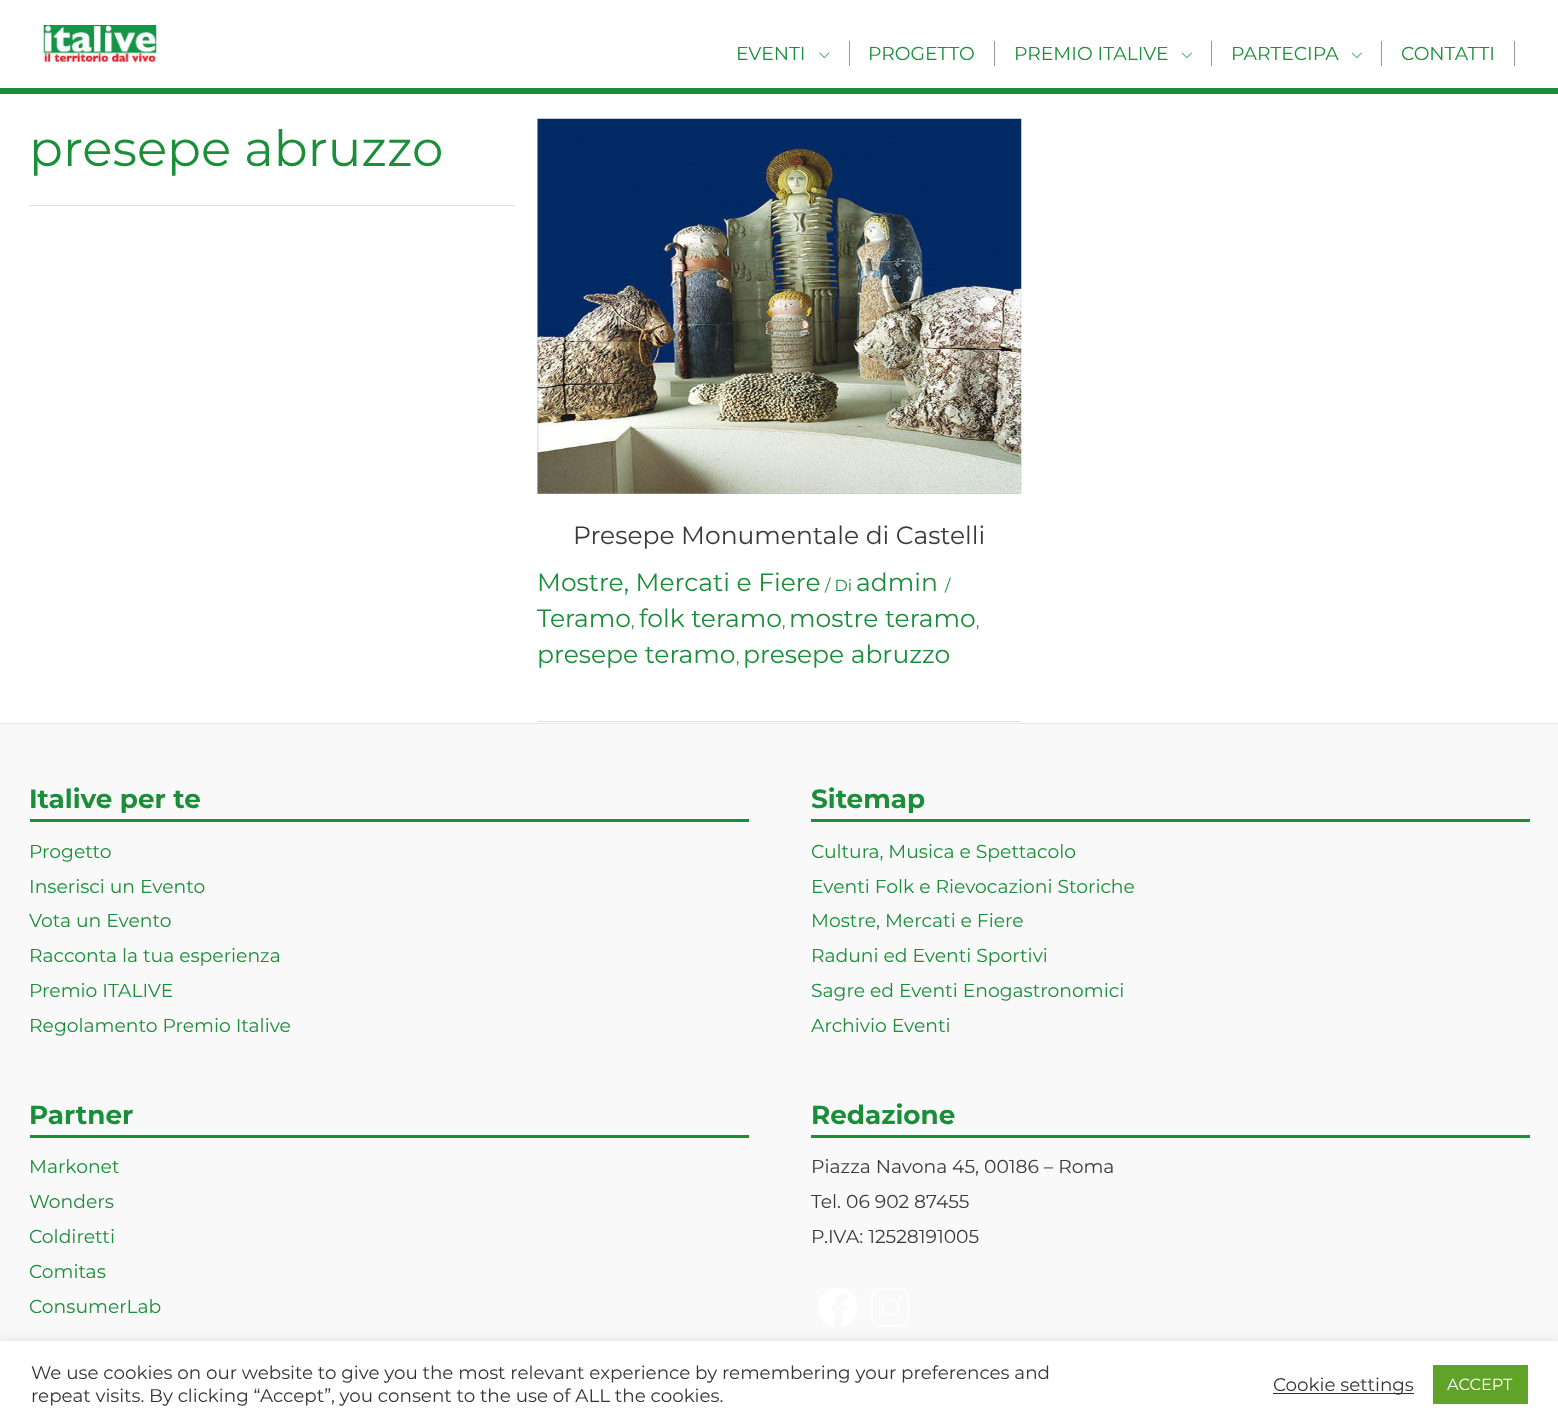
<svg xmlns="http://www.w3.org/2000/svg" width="1558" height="1427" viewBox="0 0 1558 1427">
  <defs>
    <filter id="blur1" x="-50%" y="-200%" width="200%" height="500%"><feGaussianBlur stdDeviation="6"/></filter>
  </defs>
  <rect width="100%" height="100%" fill="#ffffff"/>
  <rect x="0" y="88" width="1558" height="6" fill="#1a8e39"/>
  <image x="43" y="25" width="114" height="38" href="img1.png"/>
  <rect x="849" y="41" width="1" height="25" fill="#999999"/>
  <text x="736" y="60" font-family="Montserrat" font-size="18.75" fill="#1a8e39">EVENTI</text>
  <image x="819" y="52" width="11" height="6" href="img2.png"/>
  <rect x="994" y="41" width="1" height="25" fill="#999999"/>
  <text x="868" y="60" font-family="Montserrat" font-size="18.75" fill="#1a8e39">PROGETTO</text>
  <rect x="1211" y="41" width="1" height="25" fill="#999999"/>
  <text x="1014" y="60" font-family="Montserrat" font-size="18.75" fill="#1a8e39">PREMIO ITALIVE</text>
  <image x="1181" y="52" width="11" height="6" href="img3.png"/>
  <rect x="1381" y="41" width="1" height="25" fill="#999999"/>
  <text x="1231" y="60" font-family="Montserrat" font-size="18.75" fill="#1a8e39">PARTECIPA</text>
  <image x="1351" y="52" width="11" height="6" href="img3.png"/>
  <rect x="1514" y="41" width="1" height="25" fill="#999999"/>
  <text x="1401" y="60" font-family="Montserrat" font-size="18.75" fill="#1a8e39">CONTATTI</text>
  <rect x="30" y="205" width="484" height="1" fill="#dddddd"/>
  <text x="29" y="166" font-family="Montserrat" font-size="50" fill="#1a8e39">presepe abruzzo</text>
  <rect x="538" y="721" width="483" height="1" fill="#dddddd"/>
  <image x="537" y="118" width="485" height="376" href="img4.png"/>
  <text x="573" y="544" font-family="Montserrat" font-size="25" fill="#3a3a3a">Presepe Monumentale di Castelli</text>
  <text x="537" y="591" font-family="Montserrat" font-size="25" fill="#1a8e39">Mostre, Mercati e Fiere</text>
  <text x="825" y="591" font-family="Montserrat" font-size="16" fill="#1a8e39">/ Di</text>
  <text x="856" y="591" font-family="Montserrat" font-size="25" fill="#1a8e39">admin</text>
  <text x="945" y="591" font-family="Montserrat" font-size="16" fill="#1a8e39">/</text>
  <text x="537" y="627" font-family="Montserrat" font-size="25" fill="#1a8e39">Teramo</text>
  <text x="631" y="627" font-family="Montserrat" font-size="16" fill="#1a8e39">,</text>
  <text x="639" y="627" font-family="Montserrat" font-size="25" fill="#1a8e39">folk teramo</text>
  <text x="782" y="627" font-family="Montserrat" font-size="16" fill="#1a8e39">,</text>
  <text x="789" y="627" font-family="Montserrat" font-size="25" fill="#1a8e39">mostre teramo</text>
  <text x="976" y="627" font-family="Montserrat" font-size="16" fill="#1a8e39">,</text>
  <text x="537" y="663" font-family="Montserrat" font-size="25" fill="#1a8e39">presepe teramo</text>
  <text x="736" y="663" font-family="Montserrat" font-size="16" fill="#1a8e39">,</text>
  <text x="743" y="663" font-family="Montserrat" font-size="25" fill="#1a8e39">presepe abruzzo</text>
  <rect x="0" y="724" width="1558" height="617" fill="#f9f9f9"/>
  <rect x="0" y="723" width="1558" height="1" fill="#e6e6e6"/>
  <rect x="30" y="819" width="719" height="3" fill="#1a8e39"/>
  <text x="29" y="808" font-family="Montserrat" font-size="26.25" font-weight="bold" fill="#1a8e39">Italive per te</text>
  <text x="29" y="858" font-family="Montserrat" font-size="18.75" fill="#1a8e39">Progetto</text>
  <text x="29" y="893" font-family="Montserrat" font-size="18.75" fill="#1a8e39">Inserisci un Evento</text>
  <text x="29" y="927" font-family="Montserrat" font-size="18.75" fill="#1a8e39">Vota un Evento</text>
  <text x="29" y="962" font-family="Montserrat" font-size="18.75" fill="#1a8e39">Racconta la tua esperienza</text>
  <text x="29" y="997" font-family="Montserrat" font-size="18.75" fill="#1a8e39">Premio ITALIVE</text>
  <text x="29" y="1032" font-family="Montserrat" font-size="18.75" fill="#1a8e39">Regolamento Premio Italive</text>
  <rect x="30" y="1135" width="719" height="3" fill="#1a8e39"/>
  <text x="29" y="1124" font-family="Montserrat" font-size="26.25" font-weight="bold" fill="#1a8e39">Partner</text>
  <text x="29" y="1173" font-family="Montserrat" font-size="18.75" fill="#1a8e39">Markonet</text>
  <text x="29" y="1208" font-family="Montserrat" font-size="18.75" fill="#1a8e39">Wonders</text>
  <text x="29" y="1243" font-family="Montserrat" font-size="18.75" fill="#1a8e39">Coldiretti</text>
  <text x="29" y="1278" font-family="Montserrat" font-size="18.75" fill="#1a8e39">Comitas</text>
  <text x="29" y="1313" font-family="Montserrat" font-size="18.75" fill="#1a8e39">ConsumerLab</text>
  <rect x="811" y="819" width="719" height="3" fill="#1a8e39"/>
  <text x="811" y="808" font-family="Montserrat" font-size="26.25" font-weight="bold" fill="#1a8e39">Sitemap</text>
  <text x="811" y="858" font-family="Montserrat" font-size="18.75" fill="#1a8e39">Cultura, Musica e Spettacolo</text>
  <text x="811" y="893" font-family="Montserrat" font-size="18.75" fill="#1a8e39">Eventi Folk e Rievocazioni Storiche</text>
  <text x="811" y="927" font-family="Montserrat" font-size="18.75" fill="#1a8e39">Mostre, Mercati e Fiere</text>
  <text x="811" y="962" font-family="Montserrat" font-size="18.75" fill="#1a8e39">Raduni ed Eventi Sportivi</text>
  <text x="811" y="997" font-family="Montserrat" font-size="18.75" fill="#1a8e39">Sagre ed Eventi Enogastronomici</text>
  <text x="811" y="1032" font-family="Montserrat" font-size="18.75" fill="#1a8e39">Archivio Eventi</text>
  <rect x="811" y="1135" width="719" height="3" fill="#1a8e39"/>
  <text x="811" y="1124" font-family="Montserrat" font-size="26.25" font-weight="bold" fill="#1a8e39">Redazione</text>
  <text x="811" y="1173" font-family="Montserrat" font-size="18.75" fill="#3a3a3a">Piazza Navona 45, 00186 – Roma</text>
  <text x="811" y="1208" font-family="Montserrat" font-size="18.75" fill="#3a3a3a">Tel. 06 902 87455</text>
  <text x="811" y="1243" font-family="Montserrat" font-size="18.75" fill="#3a3a3a">P.IVA: 12528191005</text>
  <image x="818" y="1288" width="39" height="39" href="img5.png"/>
  <image x="871" y="1288" width="39" height="39" href="img6.png"/>
  <rect x="0" y="1340" width="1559" height="86" fill="#acabab" fill-opacity="0.3" filter="url(#blur1)"/>
  <rect x="0" y="1341" width="1558" height="86" fill="#ffffff"/>
  <text x="31" y="1379" font-family="Montserrat" font-size="18.33" fill="#333333">We use cookies on our website to give you the most relevant experience by remembering your preferences and</text>
  <text x="31" y="1402" font-family="Montserrat" font-size="18.33" fill="#333333">repeat visits. By clicking “Accept”, you consent to the use of ALL the cookies.</text>
  <rect x="1273" y="1393" width="141" height="1" fill="#333333"/>
  <text x="1273" y="1391" font-family="Montserrat" font-size="18.33" fill="#333333">Cookie settings</text>
  <rect x="1433" y="1365" width="95" height="39" fill="#61a229"/>
  <text x="1447" y="1390" font-family="Montserrat" font-size="16.25" fill="#ffffff">ACCEPT</text>
</svg>
